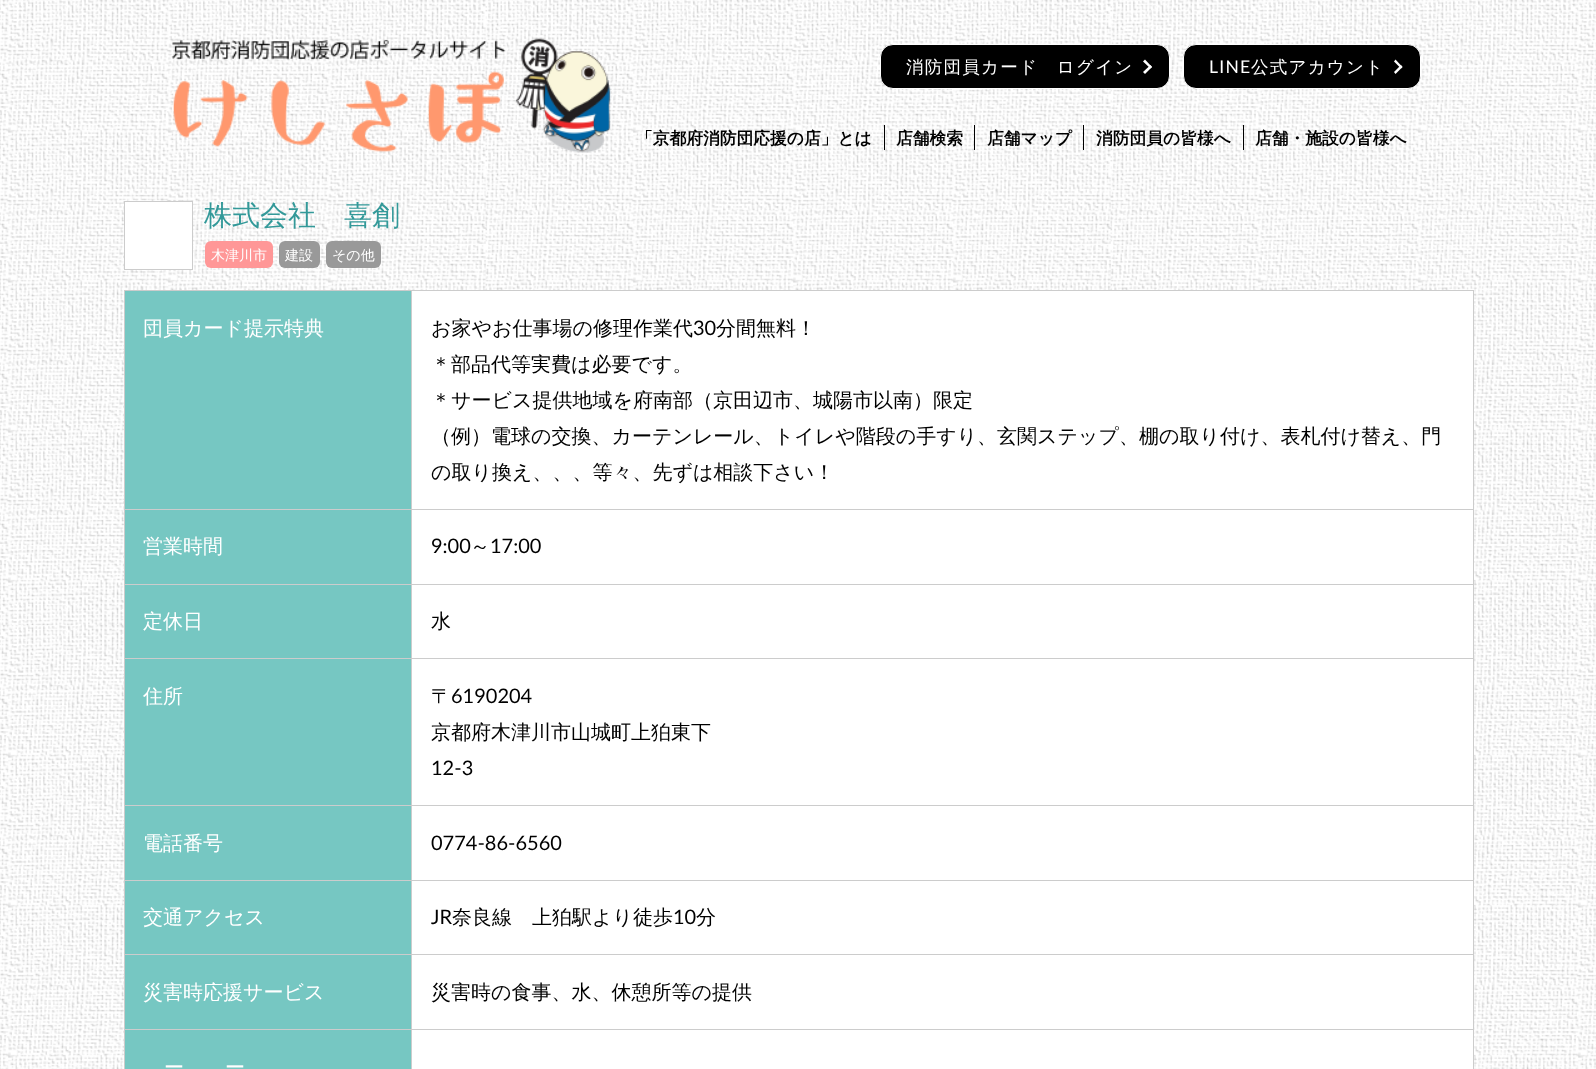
<svg xmlns="http://www.w3.org/2000/svg" width="1596" height="1069" viewBox="0 0 1596 1069">
  <rect width="100%" height="100%" fill="#ffffff"/>
  <image x="0" y="0" width="1596" height="1069" href="img1.png"/>
  <image x="171" y="38" width="440" height="115" href="img2.png"/>
  <rect x="880.5" y="44.5" width="289" height="44" rx="12.5" fill="#000000" stroke="#ffffff"/>
  <text x="906" y="73" font-family="WenQuanYi Zen Hei" font-size="17.5" font-weight="500" letter-spacing="1.25" fill="#ffffff">消防団員カード　ログイン</text>
  <path d="M1145 59.5L1152 67L1150.5 68.5L1143 61.5Z" fill="#ffffff"/>
  <path d="M1150.5 65L1152 67L1145 74L1143 72Z" fill="#ffffff"/>
  <rect x="1183.5" y="44.5" width="237" height="44" rx="12.5" fill="#000000" stroke="#ffffff"/>
  <text x="1209" y="73" font-family="Lato" font-size="17.5" letter-spacing="1.25" fill="#ffffff">LINE</text>
  <text x="1251" y="73" font-family="WenQuanYi Zen Hei" font-size="17.5" font-weight="500" letter-spacing="1.25" fill="#ffffff">公式アカウント</text>
  <path d="M1395.5 59.5L1402.5 67L1401 68.5L1394 61.5Z" fill="#ffffff"/>
  <path d="M1401 65L1402.5 67L1395.5 74L1394 72Z" fill="#ffffff"/>
  <text x="636" y="144" font-family="WenQuanYi Zen Hei" font-size="16.75" font-weight="bold" fill="#000000">「京都府消防団応援の店」とは</text>
  <rect x="884" y="125" width="1" height="25" fill="#000000"/>
  <text x="896" y="144" font-family="WenQuanYi Zen Hei" font-size="16.75" font-weight="bold" fill="#000000">店舗検索</text>
  <rect x="974" y="125" width="1" height="25" fill="#000000"/>
  <text x="987" y="144" font-family="WenQuanYi Zen Hei" font-size="16.75" font-weight="bold" fill="#000000">店舗マップ</text>
  <rect x="1083" y="125" width="1" height="25" fill="#000000"/>
  <text x="1096" y="144" font-family="WenQuanYi Zen Hei" font-size="16.75" font-weight="bold" fill="#000000">消防団員の皆様へ</text>
  <rect x="1243" y="125" width="1" height="25" fill="#000000"/>
  <text x="1255" y="144" font-family="WenQuanYi Zen Hei" font-size="16.75" font-weight="bold" fill="#000000">店舗・施設の皆様へ</text>
  <rect x="124.5" y="201.5" width="68" height="68" fill="#ffffff" stroke="#cccccc"/>
  <text x="204" y="225" font-family="WenQuanYi Zen Hei" font-size="28" font-weight="500" fill="#339999">株式会社　喜創</text>
  <rect x="205" y="241" width="68" height="27" rx="6" fill="#ff9797"/>
  <text x="211" y="260" font-family="WenQuanYi Zen Hei" font-size="14" font-weight="500" fill="#ffffff">木津川市</text>
  <rect x="279" y="241" width="41" height="27" rx="6" fill="#999999"/>
  <text x="285" y="260" font-family="WenQuanYi Zen Hei" font-size="14" font-weight="500" fill="#ffffff">建設</text>
  <rect x="326" y="241" width="55" height="27" rx="6" fill="#999999"/>
  <text x="332" y="260" font-family="WenQuanYi Zen Hei" font-size="14" font-weight="500" fill="#ffffff">その他</text>
  <rect x="125" y="291" width="286" height="218" fill="#76c7c2"/>
  <rect x="411" y="290" width="1063" height="1" fill="#cccccc"/>
  <rect x="411" y="509" width="1063" height="1" fill="#cccccc"/>
  <rect x="411" y="584" width="1063" height="1" fill="#cccccc"/>
  <rect x="411" y="658" width="1063" height="1" fill="#cccccc"/>
  <rect x="411" y="805" width="1063" height="1" fill="#cccccc"/>
  <rect x="411" y="880" width="1063" height="1" fill="#cccccc"/>
  <rect x="411" y="954" width="1063" height="1" fill="#cccccc"/>
  <rect x="411" y="1029" width="1063" height="1" fill="#cccccc"/>
  <rect x="411" y="1029" width="1" height="40" fill="#cccccc"/>
  <rect x="124" y="1029" width="289" height="1" fill="#cccccc"/>
  <rect x="411" y="954" width="1" height="76" fill="#cccccc"/>
  <rect x="124" y="954" width="289" height="1" fill="#cccccc"/>
  <rect x="411" y="880" width="1" height="75" fill="#cccccc"/>
  <rect x="124" y="880" width="289" height="1" fill="#cccccc"/>
  <rect x="411" y="805" width="1" height="76" fill="#cccccc"/>
  <rect x="124" y="805" width="289" height="1" fill="#cccccc"/>
  <rect x="411" y="658" width="1" height="148" fill="#cccccc"/>
  <rect x="124" y="658" width="289" height="1" fill="#cccccc"/>
  <rect x="411" y="584" width="1" height="75" fill="#cccccc"/>
  <rect x="124" y="584" width="289" height="1" fill="#cccccc"/>
  <rect x="411" y="509" width="1" height="76" fill="#cccccc"/>
  <rect x="124" y="509" width="289" height="1" fill="#cccccc"/>
  <rect x="411" y="290" width="1" height="220" fill="#cccccc"/>
  <rect x="124" y="290" width="289" height="1" fill="#cccccc"/>
  <rect x="124" y="1029" width="1" height="40" fill="#cccccc"/>
  <rect x="124" y="954" width="1" height="76" fill="#cccccc"/>
  <rect x="124" y="880" width="1" height="75" fill="#cccccc"/>
  <rect x="124" y="805" width="1" height="76" fill="#cccccc"/>
  <rect x="124" y="658" width="1" height="148" fill="#cccccc"/>
  <rect x="124" y="584" width="1" height="75" fill="#cccccc"/>
  <rect x="124" y="509" width="1" height="76" fill="#cccccc"/>
  <rect x="124" y="290" width="1" height="220" fill="#cccccc"/>
  <text x="143" y="335" font-family="WenQuanYi Zen Hei" font-size="20" font-weight="500" fill="#ffffff">団員カード提示特典</text>
  <rect x="412" y="291" width="1061" height="218" fill="#ffffff"/>
  <rect x="1473" y="1029" width="1" height="40" fill="#cccccc"/>
  <rect x="1473" y="954" width="1" height="76" fill="#cccccc"/>
  <rect x="1473" y="880" width="1" height="75" fill="#cccccc"/>
  <rect x="1473" y="805" width="1" height="76" fill="#cccccc"/>
  <rect x="1473" y="658" width="1" height="148" fill="#cccccc"/>
  <rect x="1473" y="584" width="1" height="75" fill="#cccccc"/>
  <rect x="1473" y="509" width="1" height="76" fill="#cccccc"/>
  <rect x="1473" y="290" width="1" height="220" fill="#cccccc"/>
  <text x="431" y="335" font-family="WenQuanYi Zen Hei" font-size="20" font-weight="500" fill="#000000">お家やお仕事場の修理作業代</text>
  <text x="693" y="335" font-family="Lato" font-size="20" fill="#000000">30</text>
  <text x="716" y="335" font-family="WenQuanYi Zen Hei" font-size="20" font-weight="500" fill="#000000">分間無料！</text>
  <text x="431" y="371" font-family="WenQuanYi Zen Hei" font-size="20" font-weight="500" fill="#000000">＊部品代等実費は必要です。</text>
  <text x="431" y="407" font-family="WenQuanYi Zen Hei" font-size="20" font-weight="500" fill="#000000">＊サービス提供地域を府南部（京田辺市、城陽市以南）限定</text>
  <text x="431" y="443" font-family="WenQuanYi Zen Hei" font-size="20" font-weight="500" fill="#000000">（例）電球の交換、カーテンレール、トイレや階段の手すり、玄関ステップ、棚の取り付け、表札付け替え、門</text>
  <text x="431" y="479" font-family="WenQuanYi Zen Hei" font-size="20" font-weight="500" fill="#000000">の取り換え、、、等々、先ずは相談下さい！</text>
  <rect x="125" y="510" width="286" height="74" fill="#76c7c2"/>
  <text x="143" y="553" font-family="WenQuanYi Zen Hei" font-size="20" font-weight="500" fill="#ffffff">営業時間</text>
  <rect x="412" y="510" width="1061" height="74" fill="#ffffff"/>
  <text x="431" y="553" font-family="Lato" font-size="20" fill="#000000">9:00</text>
  <text x="470" y="553" font-family="WenQuanYi Zen Hei" font-size="20" font-weight="500" fill="#000000">～</text>
  <text x="490" y="553" font-family="Lato" font-size="20" fill="#000000">17:00</text>
  <rect x="125" y="585" width="286" height="73" fill="#76c7c2"/>
  <text x="143" y="628" font-family="WenQuanYi Zen Hei" font-size="20" font-weight="500" fill="#ffffff">定休日</text>
  <rect x="412" y="585" width="1061" height="73" fill="#ffffff"/>
  <text x="431" y="628" font-family="WenQuanYi Zen Hei" font-size="20" font-weight="500" fill="#000000">水</text>
  <rect x="125" y="659" width="286" height="146" fill="#76c7c2"/>
  <text x="143" y="703" font-family="WenQuanYi Zen Hei" font-size="20" font-weight="500" fill="#ffffff">住所</text>
  <rect x="412" y="659" width="1061" height="146" fill="#ffffff"/>
  <text x="431" y="703" font-family="WenQuanYi Zen Hei" font-size="20" font-weight="500" fill="#000000">〒</text>
  <text x="451" y="703" font-family="Lato" font-size="20" fill="#000000">6190204</text>
  <text x="431" y="739" font-family="WenQuanYi Zen Hei" font-size="20" font-weight="500" fill="#000000">京都府木津川市山城町上狛東下</text>
  <text x="431" y="775" font-family="Lato" font-size="20" fill="#000000">12-3</text>
  <rect x="125" y="806" width="286" height="74" fill="#76c7c2"/>
  <text x="143" y="850" font-family="WenQuanYi Zen Hei" font-size="20" font-weight="500" fill="#ffffff">電話番号</text>
  <rect x="412" y="806" width="1061" height="74" fill="#ffffff"/>
  <text x="431" y="850" font-family="Lato" font-size="20" fill="#000000">0774-86-6560</text>
  <rect x="125" y="881" width="286" height="73" fill="#76c7c2"/>
  <text x="143" y="924" font-family="WenQuanYi Zen Hei" font-size="20" font-weight="500" fill="#ffffff">交通アクセス</text>
  <rect x="412" y="881" width="1061" height="73" fill="#ffffff"/>
  <text x="431" y="924" font-family="Lato" font-size="20" fill="#000000">JR</text>
  <text x="452" y="924" font-family="WenQuanYi Zen Hei" font-size="20" font-weight="500" fill="#000000">奈良線　上狛駅より徒歩</text>
  <text x="673" y="924" font-family="Lato" font-size="20" fill="#000000">10</text>
  <text x="696" y="924" font-family="WenQuanYi Zen Hei" font-size="20" font-weight="500" fill="#000000">分</text>
  <rect x="125" y="955" width="286" height="74" fill="#76c7c2"/>
  <text x="143" y="999" font-family="WenQuanYi Zen Hei" font-size="20" font-weight="500" fill="#ffffff">災害時応援サービス</text>
  <rect x="412" y="955" width="1061" height="74" fill="#ffffff"/>
  <text x="431" y="999" font-family="WenQuanYi Zen Hei" font-size="20" font-weight="500" fill="#000000">災害時の食事、水、休憩所等の提供</text>
  <rect x="125" y="1030" width="286" height="39" fill="#76c7c2"/>
  <text x="164" y="1074" font-family="WenQuanYi Zen Hei" font-size="20" font-weight="500" fill="#ffffff">ー</text>
  <text x="225" y="1074" font-family="WenQuanYi Zen Hei" font-size="20" font-weight="500" fill="#ffffff">ー</text>
  <rect x="412" y="1030" width="1061" height="39" fill="#ffffff"/>
</svg>
